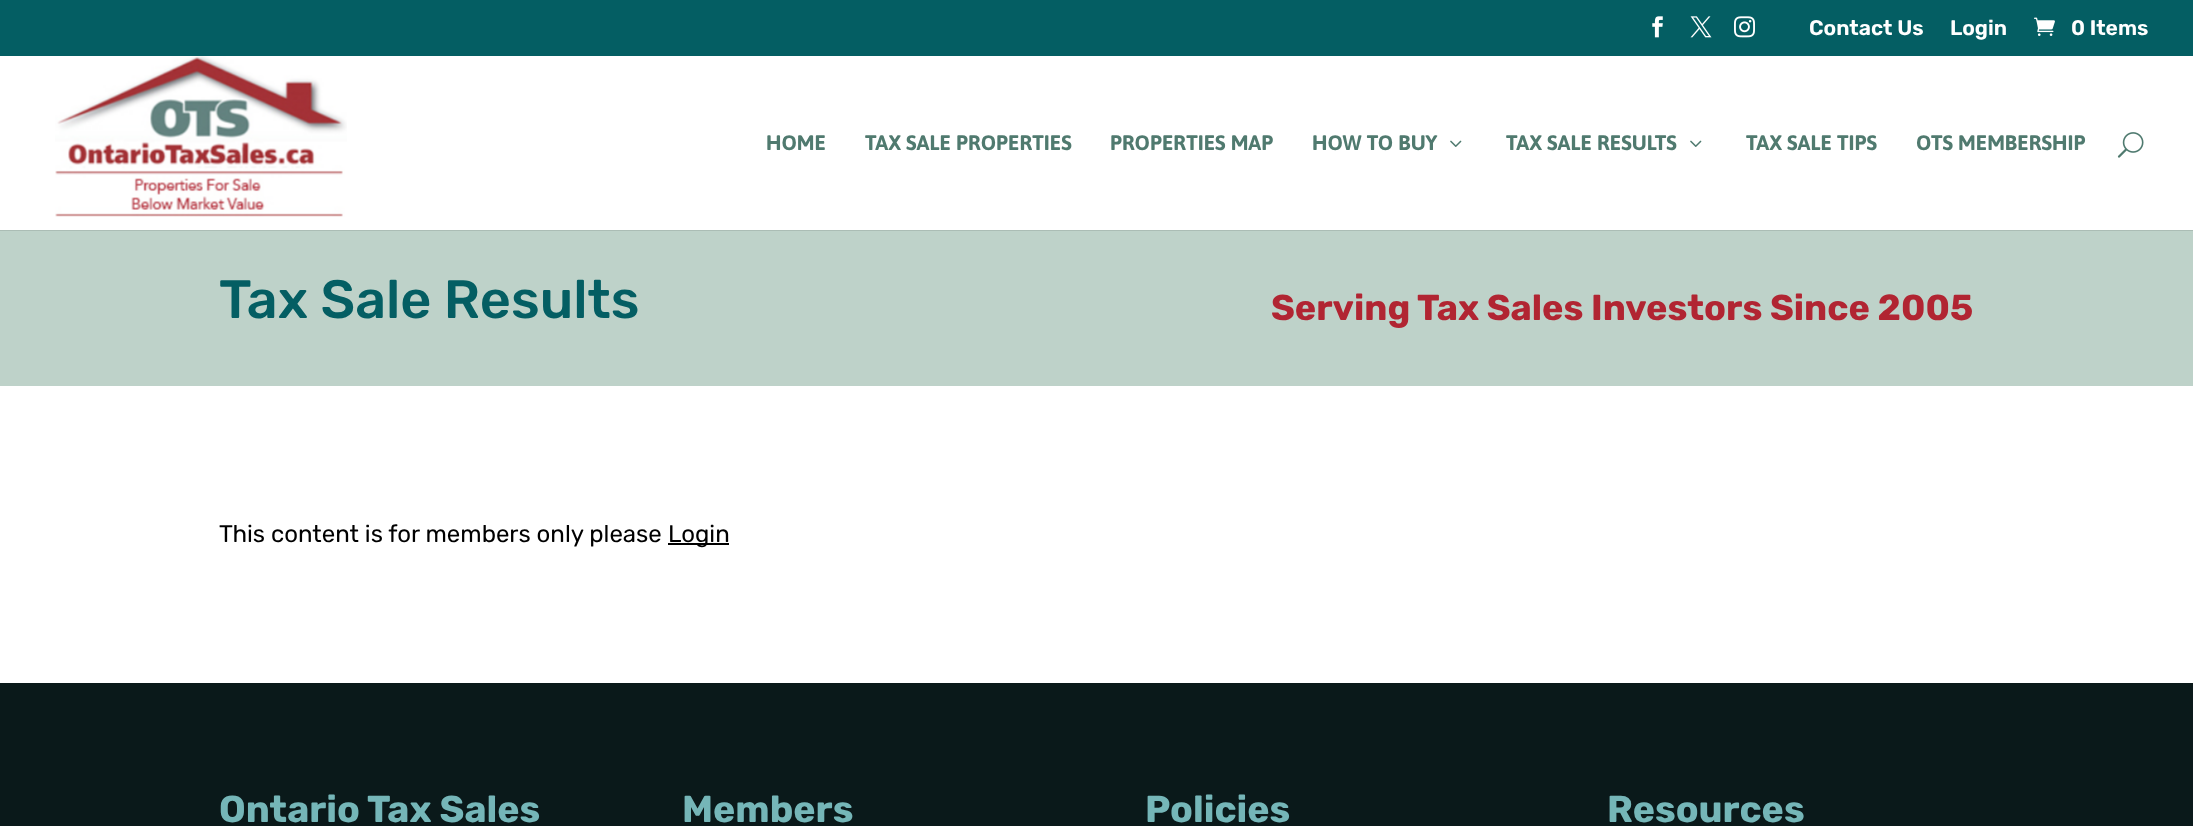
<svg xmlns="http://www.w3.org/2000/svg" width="2193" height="826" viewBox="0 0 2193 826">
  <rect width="100%" height="100%" fill="#ffffff"/>
  <rect x="0" y="0" width="2193" height="56" fill="#045e63"/>
  <image x="1652" y="16" width="11" height="22" href="img1.png"/>
  <image x="1690" y="16" width="22" height="22" href="img2.png"/>
  <image x="1734" y="16" width="21" height="22" href="img3.png"/>
  <text x="1809" y="35" font-family="Rubik" font-size="21" font-weight="600" fill="#ffffff">Contact Us</text>
  <text x="1950" y="35" font-family="Rubik" font-size="21" font-weight="600" fill="#ffffff">Login</text>
  <image x="2034" y="17" width="21" height="19" href="img4.png"/>
  <text x="2071" y="35" font-family="Rubik" font-size="21" font-weight="600" fill="#ffffff">0 Items</text>
  <rect x="0" y="230" width="2193" height="1" fill="#abbdb5"/>
  <image x="55" y="56" width="292" height="161" href="img5.png"/>
  <text x="766" y="150" font-family="Asap" font-size="21" font-weight="bold" fill="#507a6f">HOME</text>
  <text x="865" y="150" font-family="Asap" font-size="21" font-weight="bold" fill="#507a6f">TAX SALE PROPERTIES</text>
  <text x="1110" y="150" font-family="Asap" font-size="21" font-weight="bold" fill="#507a6f">PROPERTIES MAP</text>
  <text x="1312" y="150" font-family="Asap" font-size="21" font-weight="bold" fill="#507a6f">HOW TO BUY</text>
  <image x="1450" y="140" width="12" height="7" href="img6.png"/>
  <text x="1506" y="150" font-family="Asap" font-size="21" font-weight="bold" fill="#507a6f">TAX SALE RESULTS</text>
  <image x="1690" y="140" width="12" height="7" href="img6.png"/>
  <text x="1746" y="150" font-family="Asap" font-size="21" font-weight="bold" fill="#507a6f">TAX SALE TIPS</text>
  <text x="1916" y="150" font-family="Asap" font-size="21" font-weight="bold" fill="#507a6f">OTS MEMBERSHIP</text>
  <image x="2117" y="132" width="27" height="26" href="img7.png"/>
  <rect x="0" y="231" width="2193" height="155" fill="#bed2c9"/>
  <text x="219" y="318" font-family="Rubik" font-size="54" font-weight="300" fill="#045e63">Tax Sale Results</text>
  <text x="1271" y="320" font-family="'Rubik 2'" font-size="36" font-weight="300" fill="#b12532">Serving Tax Sales Investors Since 2005</text>
  <text x="219" y="542" font-family="'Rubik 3'" font-size="24" font-weight="300" fill="#000000">This content is for members only please</text>
  <rect x="668" y="543" width="61" height="2" fill="#000000"/>
  <text x="668" y="542" font-family="'Rubik 3'" font-size="24" font-weight="300" fill="#000000">Login</text>
  <rect x="0" y="683" width="2193" height="143" fill="#0a191a"/>
  <text x="219" y="822" font-family="'Rubik 2'" font-size="37.5" font-weight="300" fill="#75b6b8">Ontario Tax Sales</text>
  <text x="682" y="822" font-family="'Rubik 2'" font-size="37.5" font-weight="300" fill="#75b6b8">Members</text>
  <text x="1145" y="822" font-family="'Rubik 2'" font-size="37.5" font-weight="300" fill="#75b6b8">Policies</text>
  <text x="1607" y="822" font-family="'Rubik 2'" font-size="37.5" font-weight="300" fill="#75b6b8">Resources</text>
</svg>
